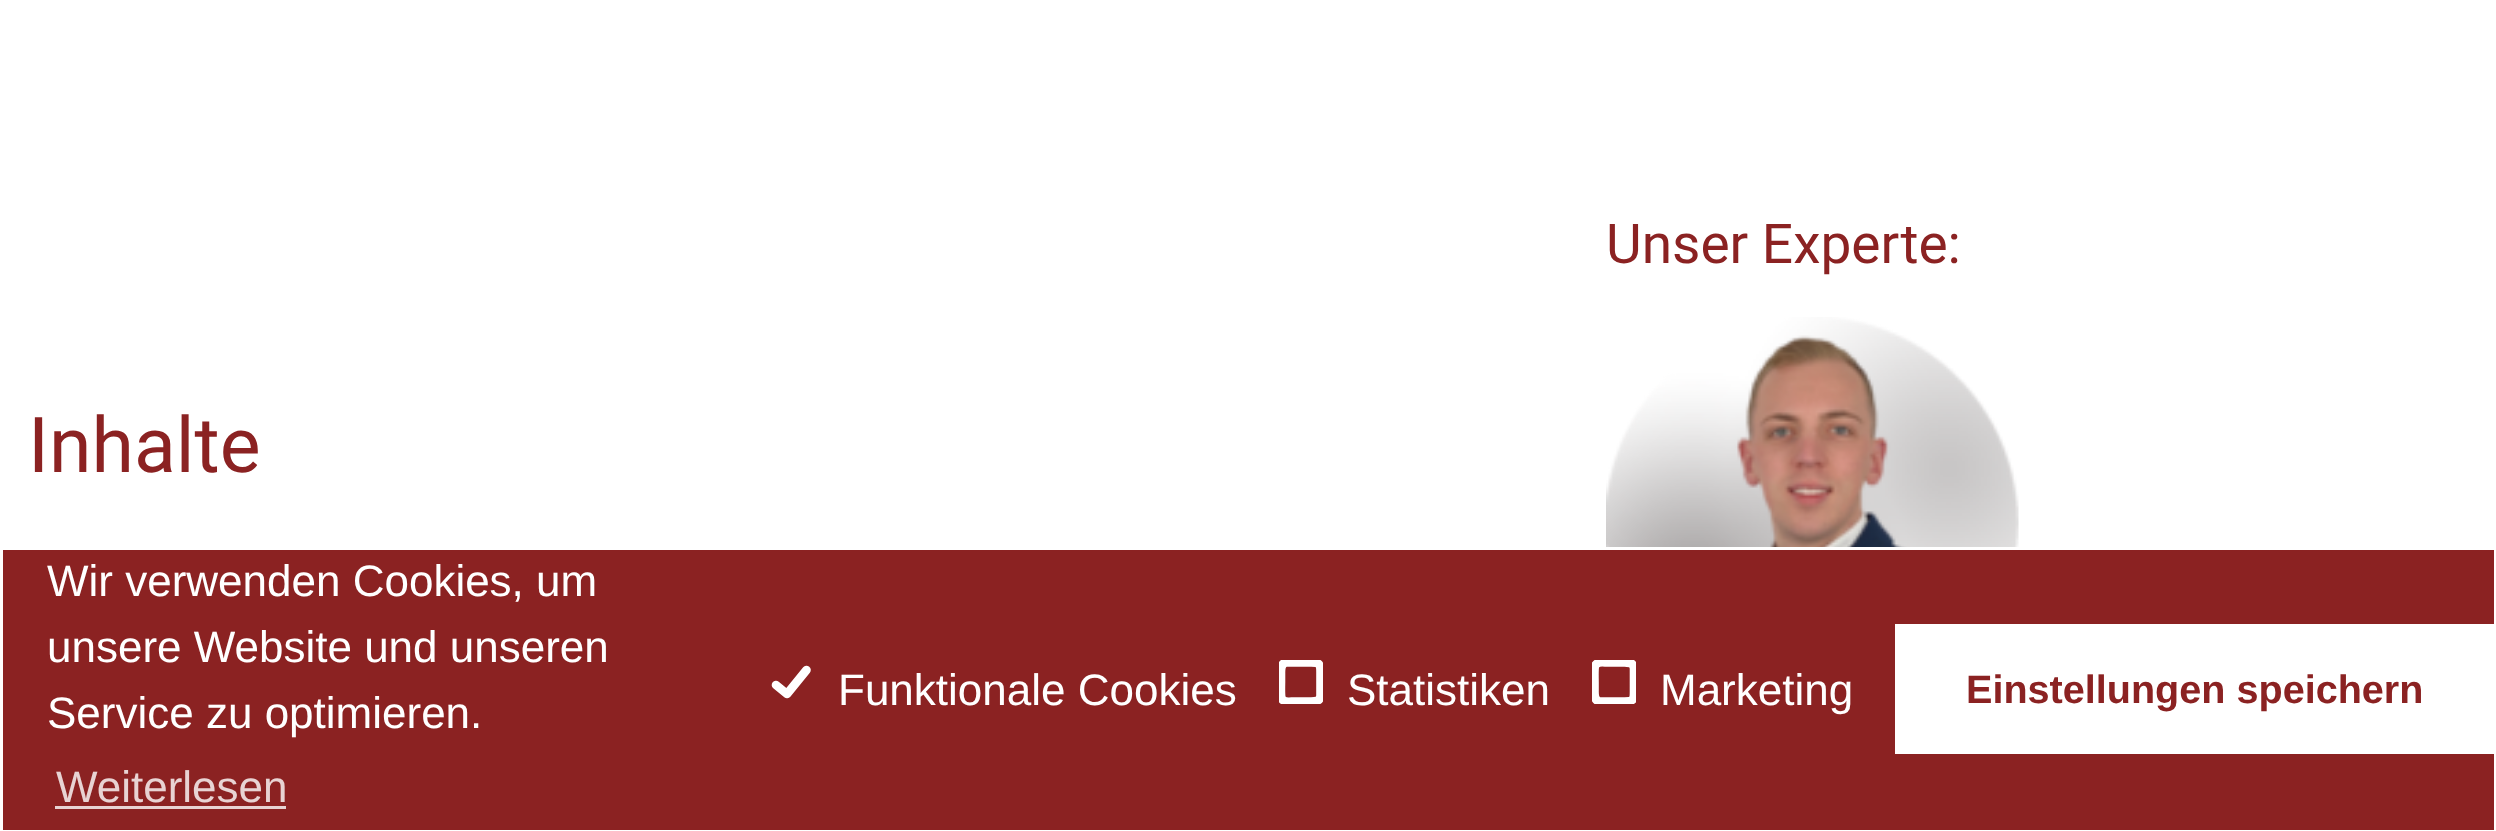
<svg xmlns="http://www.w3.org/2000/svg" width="2496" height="831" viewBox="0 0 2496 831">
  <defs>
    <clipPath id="clip1"><rect x="1279" y="660" width="44" height="44"/></clipPath>
    <clipPath id="clip2"><rect x="1592" y="660" width="44" height="44"/></clipPath>
  </defs>
  <rect width="100%" height="100%" fill="#ffffff"/>
  <text x="1606" y="263" font-family="Roboto" font-size="55" fill="#8b2222">Unser Experte:</text>
  <image x="1606" y="317" width="413" height="230" href="img1.png"/>
  <text x="28" y="472" font-family="Roboto" font-size="77" fill="#8b2222">Inhalte</text>
  <rect x="3" y="550" width="2491" height="280" fill="#8b2222"/>
  <text x="47" y="596" font-family="Liberation Sans" font-size="44" fill="#ffffff">Wir verwenden Cookies, um</text>
  <text x="47" y="662" font-family="Liberation Sans" font-size="44" fill="#ffffff">unsere Website und unseren</text>
  <text x="47" y="728" font-family="Liberation Sans" font-size="44" fill="#ffffff">Service zu optimieren.</text>
  <text x="56" y="802" font-family="Liberation Sans" font-size="44" fill="#e8d3d3">Weiterlesen</text>
  <rect x="55" y="806" width="231" height="3" fill="#e8d3d3"/>
  <path d="M776 685L787 694L806.5 670" fill="none" stroke="#ffffff" stroke-width="8.6" stroke-linecap="round" stroke-linejoin="round"/>
  <text x="838" y="705" font-family="Liberation Sans" font-size="44" fill="#ffffff">Funktionale Cookies</text>
  <g clip-path="url(#clip1)">
    <path d="M1281 682V673.5C1281 669.5 1280.5 663.5 1286 662.5H1311C1319 662.5 1320.5 663.5 1320.5 672V695.5C1320 701.5 1315.5 701.5 1311 701.5H1294C1290.5 701.5 1284.5 703 1282 699C1280.5 696.5 1281 685.5 1281 682" fill="none" stroke="#ffffff" stroke-width="8.6" stroke-linecap="round" stroke-linejoin="round"/>
  </g>
  <text x="1347" y="705" font-family="Liberation Sans" font-size="44" fill="#ffffff">Statistiken</text>
  <g clip-path="url(#clip2)">
    <path d="M1594.5 682C1594.5 678.5 1594 667.5 1595.5 665C1598 661 1604 662.5 1607.5 662.5H1624.5C1629 662.5 1633.5 662.5 1634 668.5V692C1634 700.5 1632.5 701.5 1624.5 701.5H1599.5C1594 700.5 1594.5 694.5 1594.5 690.5V682" fill="none" stroke="#ffffff" stroke-width="8.6" stroke-linecap="round" stroke-linejoin="round"/>
  </g>
  <text x="1660" y="705" font-family="Liberation Sans" font-size="44" fill="#ffffff">Marketing</text>
  <rect x="1895" y="624" width="599" height="130" fill="#ffffff"/>
  <text x="1966" y="703" font-family="Liberation Sans" font-size="39.6" font-weight="bold" fill="#8b2222">Einstellungen speichern</text>
</svg>
